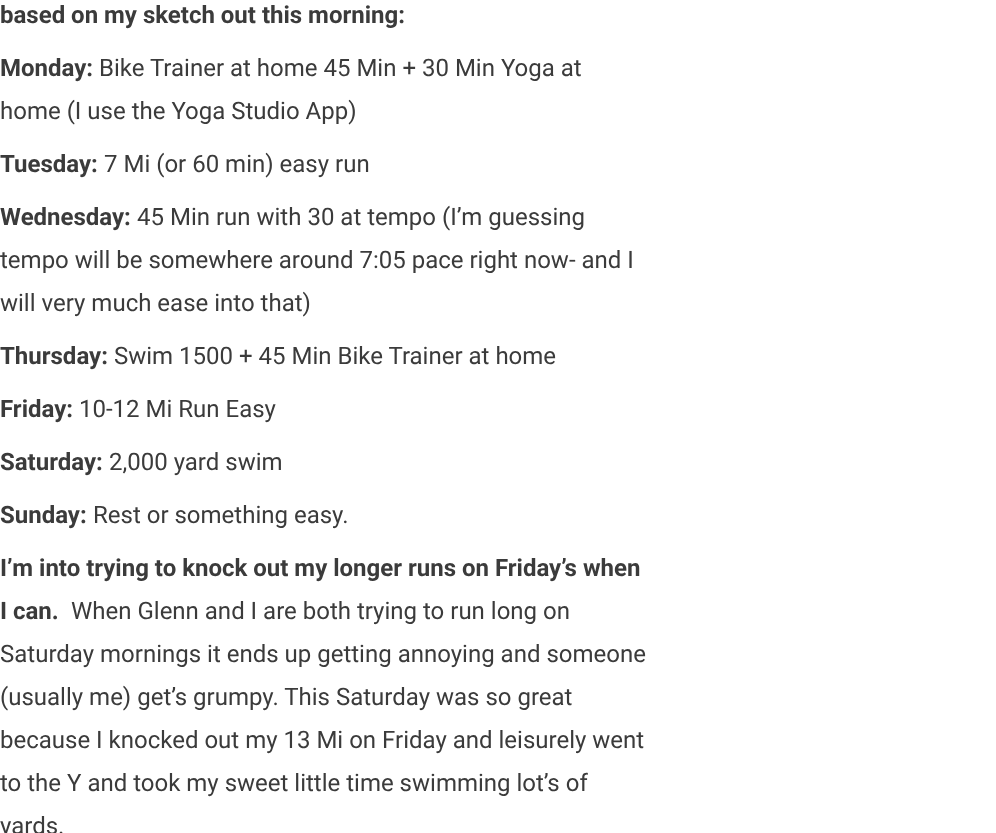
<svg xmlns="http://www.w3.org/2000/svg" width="996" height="833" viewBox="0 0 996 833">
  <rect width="100%" height="100%" fill="#ffffff"/>
  <text x="0" y="23" font-family="Roboto" font-size="24" font-weight="bold" fill="#3b3b3b">based on my sketch out this morning:</text>
  <text x="0" y="76" font-family="Roboto" font-size="24" font-weight="bold" fill="#3b3b3b">Monday:</text>
  <text x="99" y="76" font-family="Roboto" font-size="24" fill="#3b3b3b">Bike Trainer at home 45 Min + 30 Min Yoga at</text>
  <text x="0" y="119" font-family="Roboto" font-size="24" fill="#3b3b3b">home (I use the Yoga Studio App)</text>
  <text x="0" y="172" font-family="Roboto" font-size="24" font-weight="bold" fill="#3b3b3b">Tuesday:</text>
  <text x="104" y="172" font-family="Roboto" font-size="24" fill="#3b3b3b">7 Mi (or 60 min) easy run</text>
  <text x="0" y="225" font-family="Roboto" font-size="24" font-weight="bold" fill="#3b3b3b">Wednesday:</text>
  <text x="137" y="225" font-family="Roboto" font-size="24" fill="#3b3b3b">45 Min run with 30 at tempo (I’m guessing</text>
  <text x="0" y="268" font-family="Roboto" font-size="24" fill="#3b3b3b">tempo will be somewhere around 7:05 pace right now- and I</text>
  <text x="0" y="311" font-family="Roboto" font-size="24" fill="#3b3b3b">will very much ease into that)</text>
  <text x="0" y="364" font-family="Roboto" font-size="24" font-weight="bold" fill="#3b3b3b">Thursday:</text>
  <text x="114" y="364" font-family="Roboto" font-size="24" fill="#3b3b3b">Swim 1500 + 45 Min Bike Trainer at home</text>
  <text x="0" y="417" font-family="Roboto" font-size="24" font-weight="bold" fill="#3b3b3b">Friday:</text>
  <text x="79" y="417" font-family="Roboto" font-size="24" fill="#3b3b3b">10-12 Mi Run Easy</text>
  <text x="0" y="470" font-family="Roboto" font-size="24" font-weight="bold" fill="#3b3b3b">Saturday:</text>
  <text x="109" y="470" font-family="Roboto" font-size="24" fill="#3b3b3b">2,000 yard swim</text>
  <text x="0" y="523" font-family="Roboto" font-size="24" font-weight="bold" fill="#3b3b3b">Sunday:</text>
  <text x="93" y="523" font-family="Roboto" font-size="24" fill="#3b3b3b">Rest or something easy.</text>
  <text x="0" y="576" font-family="Roboto" font-size="24" font-weight="bold" fill="#3b3b3b">I’m into trying to knock out my longer runs on Friday’s when</text>
  <text x="0" y="619" font-family="Roboto" font-size="24" font-weight="bold" fill="#3b3b3b">I can.</text>
  <text x="71" y="619" font-family="Roboto" font-size="24" fill="#3b3b3b">When Glenn and I are both trying to run long on</text>
  <text x="0" y="662" font-family="Roboto" font-size="24" fill="#3b3b3b">Saturday mornings it ends up getting annoying and someone</text>
  <text x="0" y="705" font-family="Roboto" font-size="24" fill="#3b3b3b">(usually me) get’s grumpy. This Saturday was so great</text>
  <text x="0" y="748" font-family="Roboto" font-size="24" fill="#3b3b3b">because I knocked out my 13 Mi on Friday and leisurely went</text>
  <text x="0" y="791" font-family="Roboto" font-size="24" fill="#3b3b3b">to the Y and took my sweet little time swimming lot’s of</text>
  <text x="0" y="834" font-family="Roboto" font-size="24" fill="#3b3b3b">yards.</text>
</svg>
